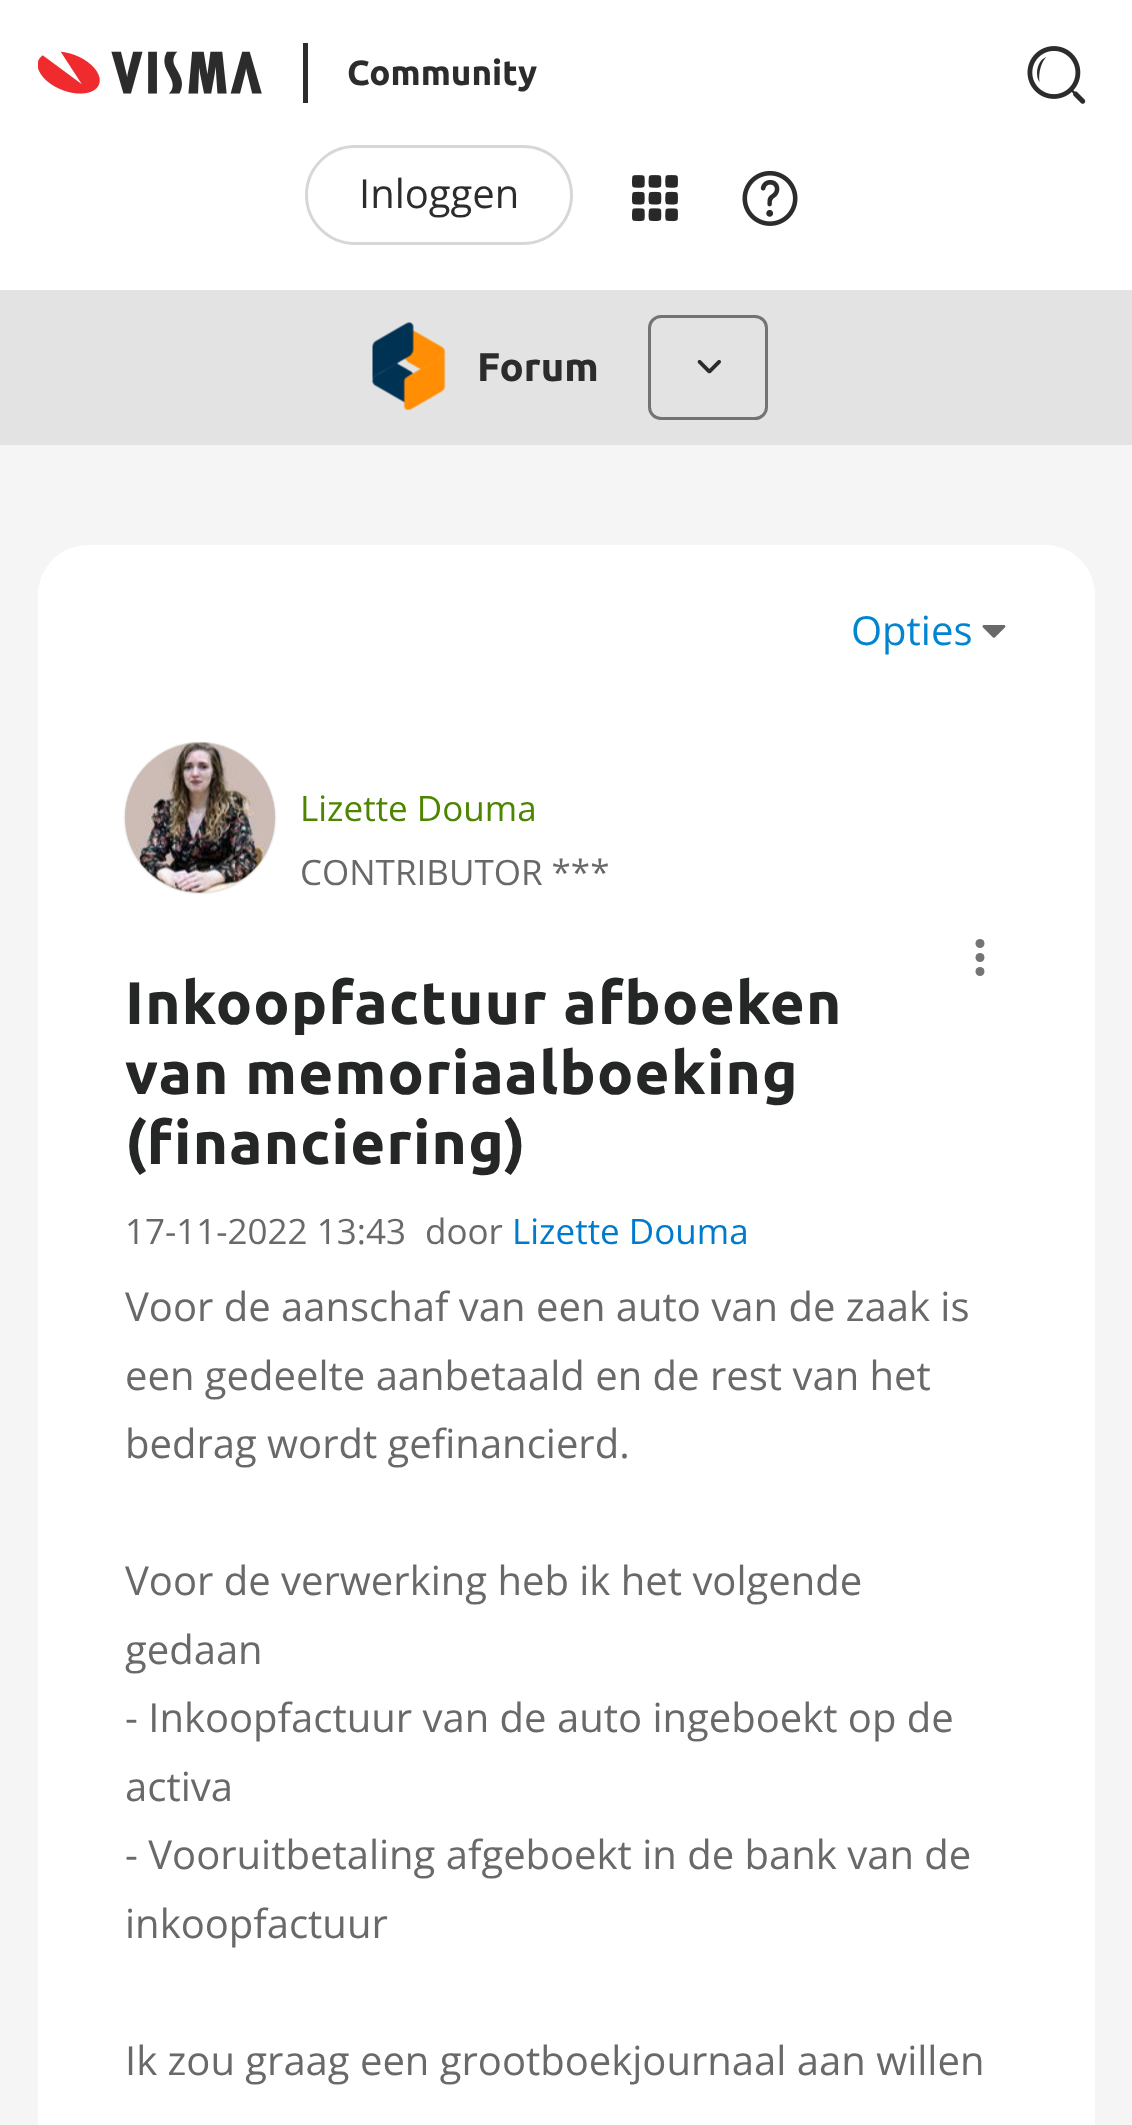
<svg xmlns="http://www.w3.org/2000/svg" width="1132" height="2125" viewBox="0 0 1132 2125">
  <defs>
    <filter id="blur1" x="-50%" y="-200%" width="200%" height="500%"><feGaussianBlur stdDeviation="1"/></filter>
  </defs>
  <rect width="100%" height="100%" fill="#f5f5f5"/>
  <rect x="0" y="0" width="1132" height="290" fill="#ffffff"/>
  <image x="38" y="51" width="224" height="43" href="img1.png"/>
  <rect x="303" y="43" width="5" height="60" fill="#2c2c2c"/>
  <text x="347" y="85" font-family="Ubuntu" font-size="35" font-weight="bold" fill="#2c2c2c">Community</text>
  <image x="1027" y="46" width="59" height="58" href="img2.png"/>
  <rect x="306.5" y="146.5" width="265" height="97" rx="48.5" fill="none" stroke="#d7d7d7" stroke-width="3"/>
  <text x="359" y="208" font-family="Open Sans" font-size="40" fill="#2c2c2c">Inloggen</text>
  <image x="631" y="175" width="47" height="47" href="img3.png"/>
  <image x="742" y="170" width="56" height="56" href="img4.png"/>
  <rect x="0" y="290" width="1132" height="155" fill="#e3e3e3"/>
  <image x="372" y="322" width="74" height="89" href="img5.png"/>
  <text x="477" y="381" font-family="Ubuntu" font-size="40" font-weight="bold" fill="#2c2c2c">Forum</text>
  <rect x="649.5" y="316.5" width="117" height="102" rx="11.5" fill="none" stroke="#737373" stroke-width="3"/>
  <image x="697" y="359" width="24" height="15" href="img6.png"/>
  <rect x="38" y="545" width="1057" height="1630" rx="50" fill="#ffffff"/>
  <text x="851" y="645" font-family="Open Sans" font-size="40" fill="#0285d0">Opties</text>
  <image x="982" y="625" width="24" height="13" href="img7.png"/>
  <rect x="125" y="743" width="150" height="150" rx="75" fill="#c4c4c4" filter="url(#blur1)"/>
  <image x="125" y="742" width="150" height="151" href="img8.png"/>
  <text x="300" y="821" font-family="Open Sans" font-size="35" fill="#4d8400">Lizette Douma</text>
  <text x="300" y="885" font-family="Open Sans" font-size="35" fill="#696969">CONTRIBUTOR ***</text>
  <circle cx="980" cy="943.5" r="4.5" fill="#747474"/>
  <circle cx="980" cy="957.5" r="4.5" fill="#747474"/>
  <circle cx="980" cy="971.5" r="4.5" fill="#747474"/>
  <text x="125" y="1024" font-family="Ubuntu" font-size="60" font-weight="bold" letter-spacing="1.25" fill="#252626">Inkoopfactuur afboeken</text>
  <text x="125" y="1094" font-family="Ubuntu" font-size="60" font-weight="bold" letter-spacing="1.25" fill="#252626">van memoriaalboeking</text>
  <text x="125" y="1164" font-family="Ubuntu" font-size="60" font-weight="bold" letter-spacing="1.25" fill="#252626">(financiering)</text>
  <text x="125" y="1244" font-family="Open Sans" font-size="35" fill="#696969">17-11-2022 13:43</text>
  <text x="425" y="1244" font-family="Open Sans" font-size="35" fill="#696969">door</text>
  <text x="512" y="1244" font-family="Open Sans" font-size="35" fill="#007aca">Lizette Douma</text>
  <text x="125" y="1321" font-family="Open Sans" font-size="40" fill="#696969">Voor de aanschaf van een auto van de zaak is</text>
  <text x="125" y="1390" font-family="Open Sans" font-size="40" fill="#696969">een gedeelte aanbetaald en de rest van het</text>
  <text x="125" y="1458" font-family="Open Sans" font-size="40" fill="#696969">bedrag wordt gefinancierd.</text>
  <text x="125" y="1595" font-family="Open Sans" font-size="40" fill="#696969">Voor de verwerking heb ik het volgende</text>
  <text x="125" y="1664" font-family="Open Sans" font-size="40" fill="#696969">gedaan</text>
  <text x="125" y="1732" font-family="Open Sans" font-size="40" fill="#696969">- Inkoopfactuur van de auto ingeboekt op de</text>
  <text x="125" y="1801" font-family="Open Sans" font-size="40" fill="#696969">activa</text>
  <text x="125" y="1869" font-family="Open Sans" font-size="40" fill="#696969">- Vooruitbetaling afgeboekt in de bank van de</text>
  <text x="125" y="1938" font-family="Open Sans" font-size="40" fill="#696969">inkoopfactuur</text>
  <text x="125" y="2075" font-family="Open Sans" font-size="40" fill="#696969">Ik zou graag een grootboekjournaal aan willen</text>
</svg>
